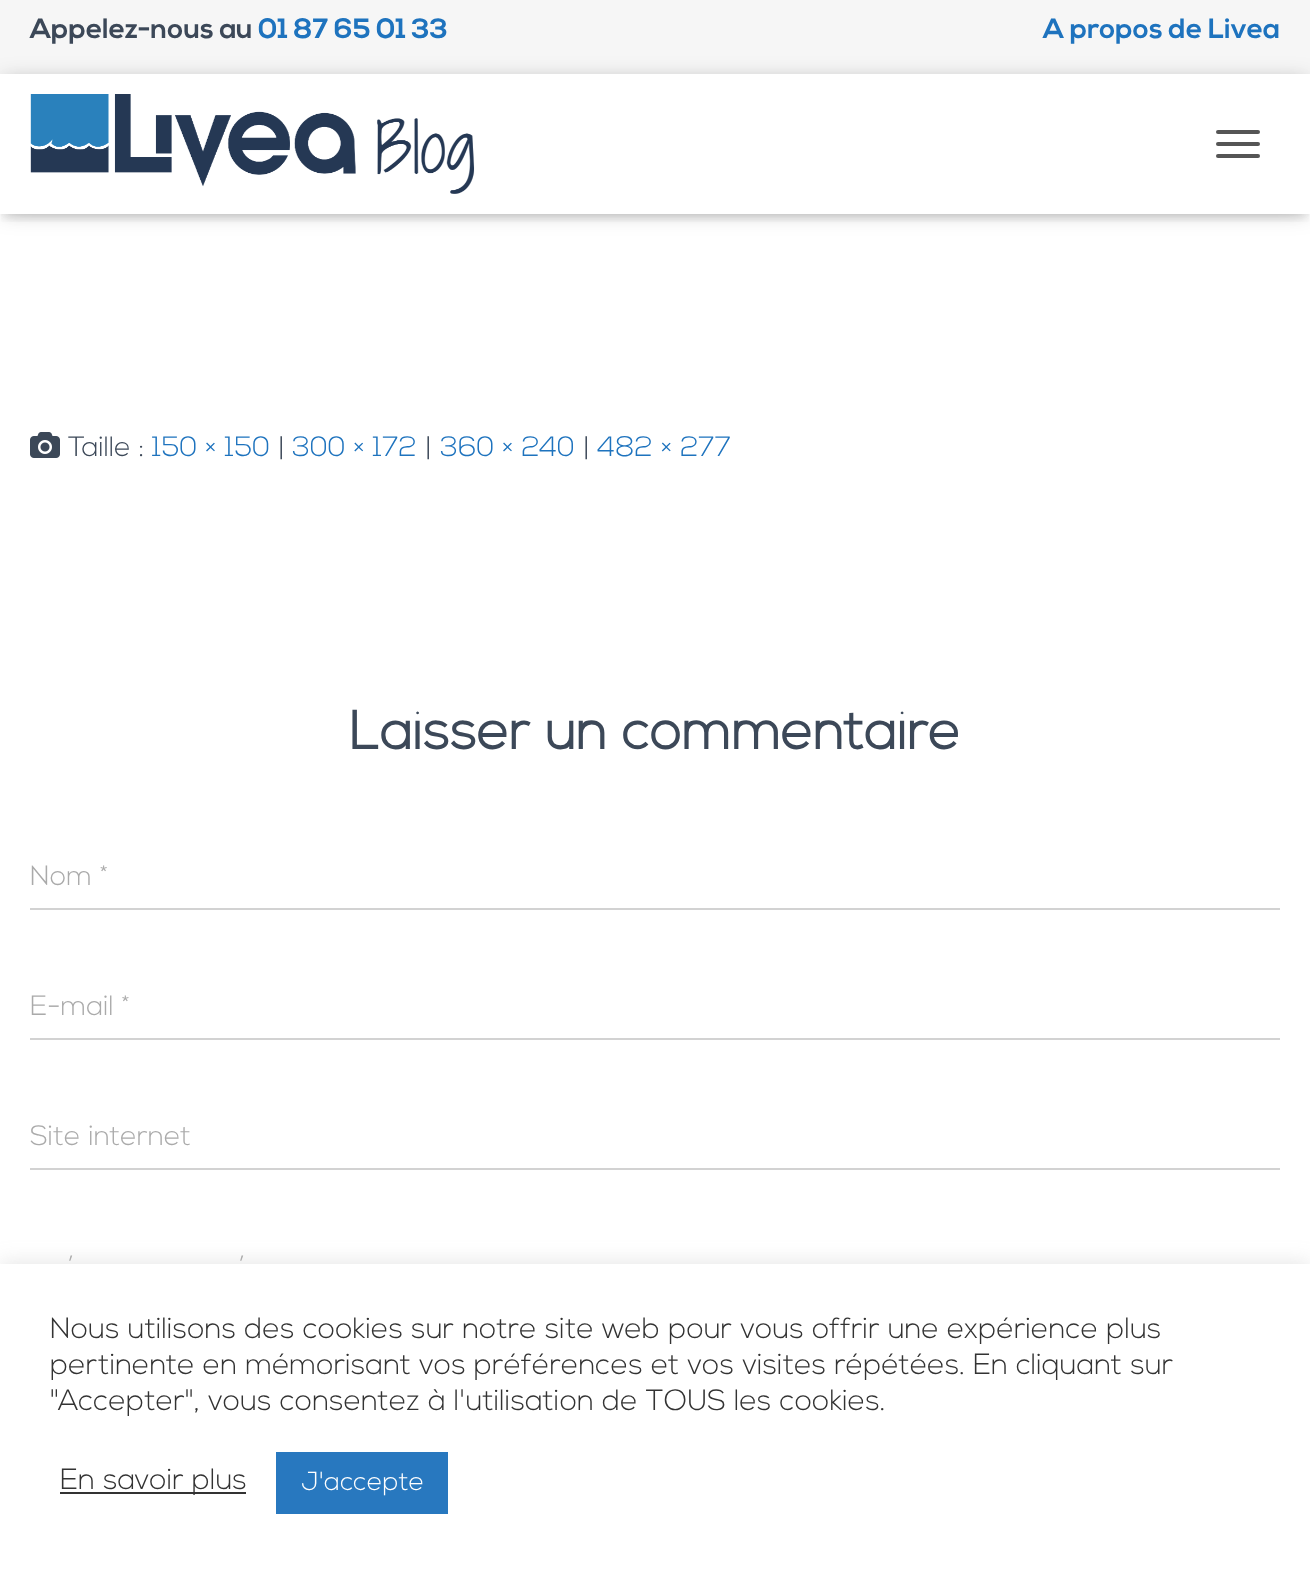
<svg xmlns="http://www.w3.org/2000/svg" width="1310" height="1573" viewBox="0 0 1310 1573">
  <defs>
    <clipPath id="clip1"><rect x="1" y="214" width="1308" height="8"/></clipPath>
    <filter id="blur1" x="-50%" y="-200%" width="200%" height="500%"><feGaussianBlur stdDeviation="5"/></filter>
    <clipPath id="clip2"><path d="M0 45H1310V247H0ZM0 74H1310V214H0Z" clip-rule="evenodd"/></clipPath>
    <filter id="blur2" x="-50%" y="-200%" width="200%" height="500%"><feGaussianBlur stdDeviation="10"/></filter>
    <clipPath id="clip3"><path d="M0 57H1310V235H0ZM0 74H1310V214H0Z" clip-rule="evenodd"/></clipPath>
  </defs>
  <rect width="100%" height="100%" fill="#ffffff"/>
  <rect x="0" y="0" width="1310" height="74" fill="#f6f6f6"/>
  <text x="30" y="38" font-family="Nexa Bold" font-size="28" font-weight="bold" fill="#3c4858">Appelez-nous au</text>
  <text x="258" y="38" font-family="Nexa Bold" font-size="28" font-weight="bold" fill="#1e73be">01 87 65 01 33</text>
  <text x="1043" y="38" font-family="Nexa Bold" font-size="28" font-weight="bold" fill="#1e73be">A propos de Livea</text>
  <g clip-path="url(#clip1)">
    <rect x="4" y="86" width="1302" height="132" fill="#000000" fill-opacity="0.1" filter="url(#blur1)"/>
  </g>
  <g clip-path="url(#clip2)">
    <rect x="0" y="76" width="1310" height="140" fill="#000000" fill-opacity="0.12" filter="url(#blur2)"/>
  </g>
  <g clip-path="url(#clip3)">
    <rect x="12" y="88" width="1286" height="116" fill="#000000" fill-opacity="0.42" filter="url(#blur2)"/>
  </g>
  <image x="30" y="94" width="445" height="100" href="img1.png"/>
  <rect x="1216" y="130" width="44" height="4" rx="2" fill="#555555"/>
  <rect x="1216" y="142" width="44" height="4" rx="2" fill="#555555"/>
  <rect x="1216" y="154" width="44" height="4" rx="2" fill="#555555"/>
  <image x="30" y="432" width="30" height="26" href="img2.png"/>
  <text x="68" y="456" font-family="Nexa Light" font-size="28" font-weight="300" fill="#3c4858">Taille :</text>
  <text x="152" y="456" font-family="Nexa Light" font-size="28" font-weight="300" fill="#1e73be">150 × 150</text>
  <text x="278" y="456" font-family="Nexa Light" font-size="28" font-weight="300" fill="#3c4858">|</text>
  <text x="292" y="456" font-family="Nexa Light" font-size="28" font-weight="300" fill="#1e73be">300 × 172</text>
  <text x="425" y="456" font-family="Nexa Light" font-size="28" font-weight="300" fill="#3c4858">|</text>
  <text x="440" y="456" font-family="Nexa Light" font-size="28" font-weight="300" fill="#1e73be">360 × 240</text>
  <text x="583" y="456" font-family="Nexa Light" font-size="28" font-weight="300" fill="#3c4858">|</text>
  <text x="597" y="456" font-family="Nexa Light" font-size="28" font-weight="300" fill="#1e73be">482 × 277</text>
  <text x="349" y="749" font-family="Nexa Light" font-size="54" font-weight="bold" fill="#3c4858">Laisser un commentaire</text>
  <text x="30" y="885" font-family="Nexa Light" font-size="28" font-weight="300" fill="#aaaaaa">Nom *</text>
  <rect x="30" y="908" width="1250" height="2" fill="#d2d2d2"/>
  <text x="30" y="1015" font-family="Nexa Light" font-size="28" font-weight="300" fill="#aaaaaa">E-mail *</text>
  <rect x="30" y="1038" width="1250" height="2" fill="#d2d2d2"/>
  <text x="30" y="1145" font-family="Nexa Light" font-size="28" font-weight="300" fill="#aaaaaa">Site internet</text>
  <rect x="30" y="1168" width="1250" height="2" fill="#d2d2d2"/>
  <text x="68" y="1275" font-family="Nexa Light" font-size="28" font-weight="300" fill="#aaaaaa">’</text>
  <text x="239" y="1275" font-family="Nexa Light" font-size="28" font-weight="300" fill="#aaaaaa">’</text>
  <rect x="0" y="1262" width="1310" height="310" fill="#acabab" fill-opacity="0.3" filter="url(#blur2)"/>
  <rect x="0" y="1264" width="1310" height="309" fill="#ffffff"/>
  <text x="50" y="1338" font-family="Nexa Light" font-size="29.35" font-weight="300" fill="#333333">Nous utilisons des cookies sur notre site web pour vous offrir une expérience plus</text>
  <text x="50" y="1374" font-family="Nexa Light" font-size="29.35" font-weight="300" fill="#333333">pertinente en mémorisant vos préférences et vos visites répétées. En cliquant sur</text>
  <text x="50" y="1410" font-family="Nexa Light" font-size="29.35" font-weight="300" fill="#333333">"Accepter", vous consentez à l'utilisation de TOUS les cookies.</text>
  <rect x="60" y="1492" width="186" height="2" fill="#333333"/>
  <text x="60" y="1489" font-family="Nexa Light" font-size="29.35" font-weight="300" fill="#333333">En savoir plus</text>
  <rect x="276" y="1452" width="172" height="62" fill="#2878bf"/>
  <text x="301" y="1490" font-family="Nexa Light" font-size="26" font-weight="300" fill="#ffffff">J'accepte</text>
</svg>
